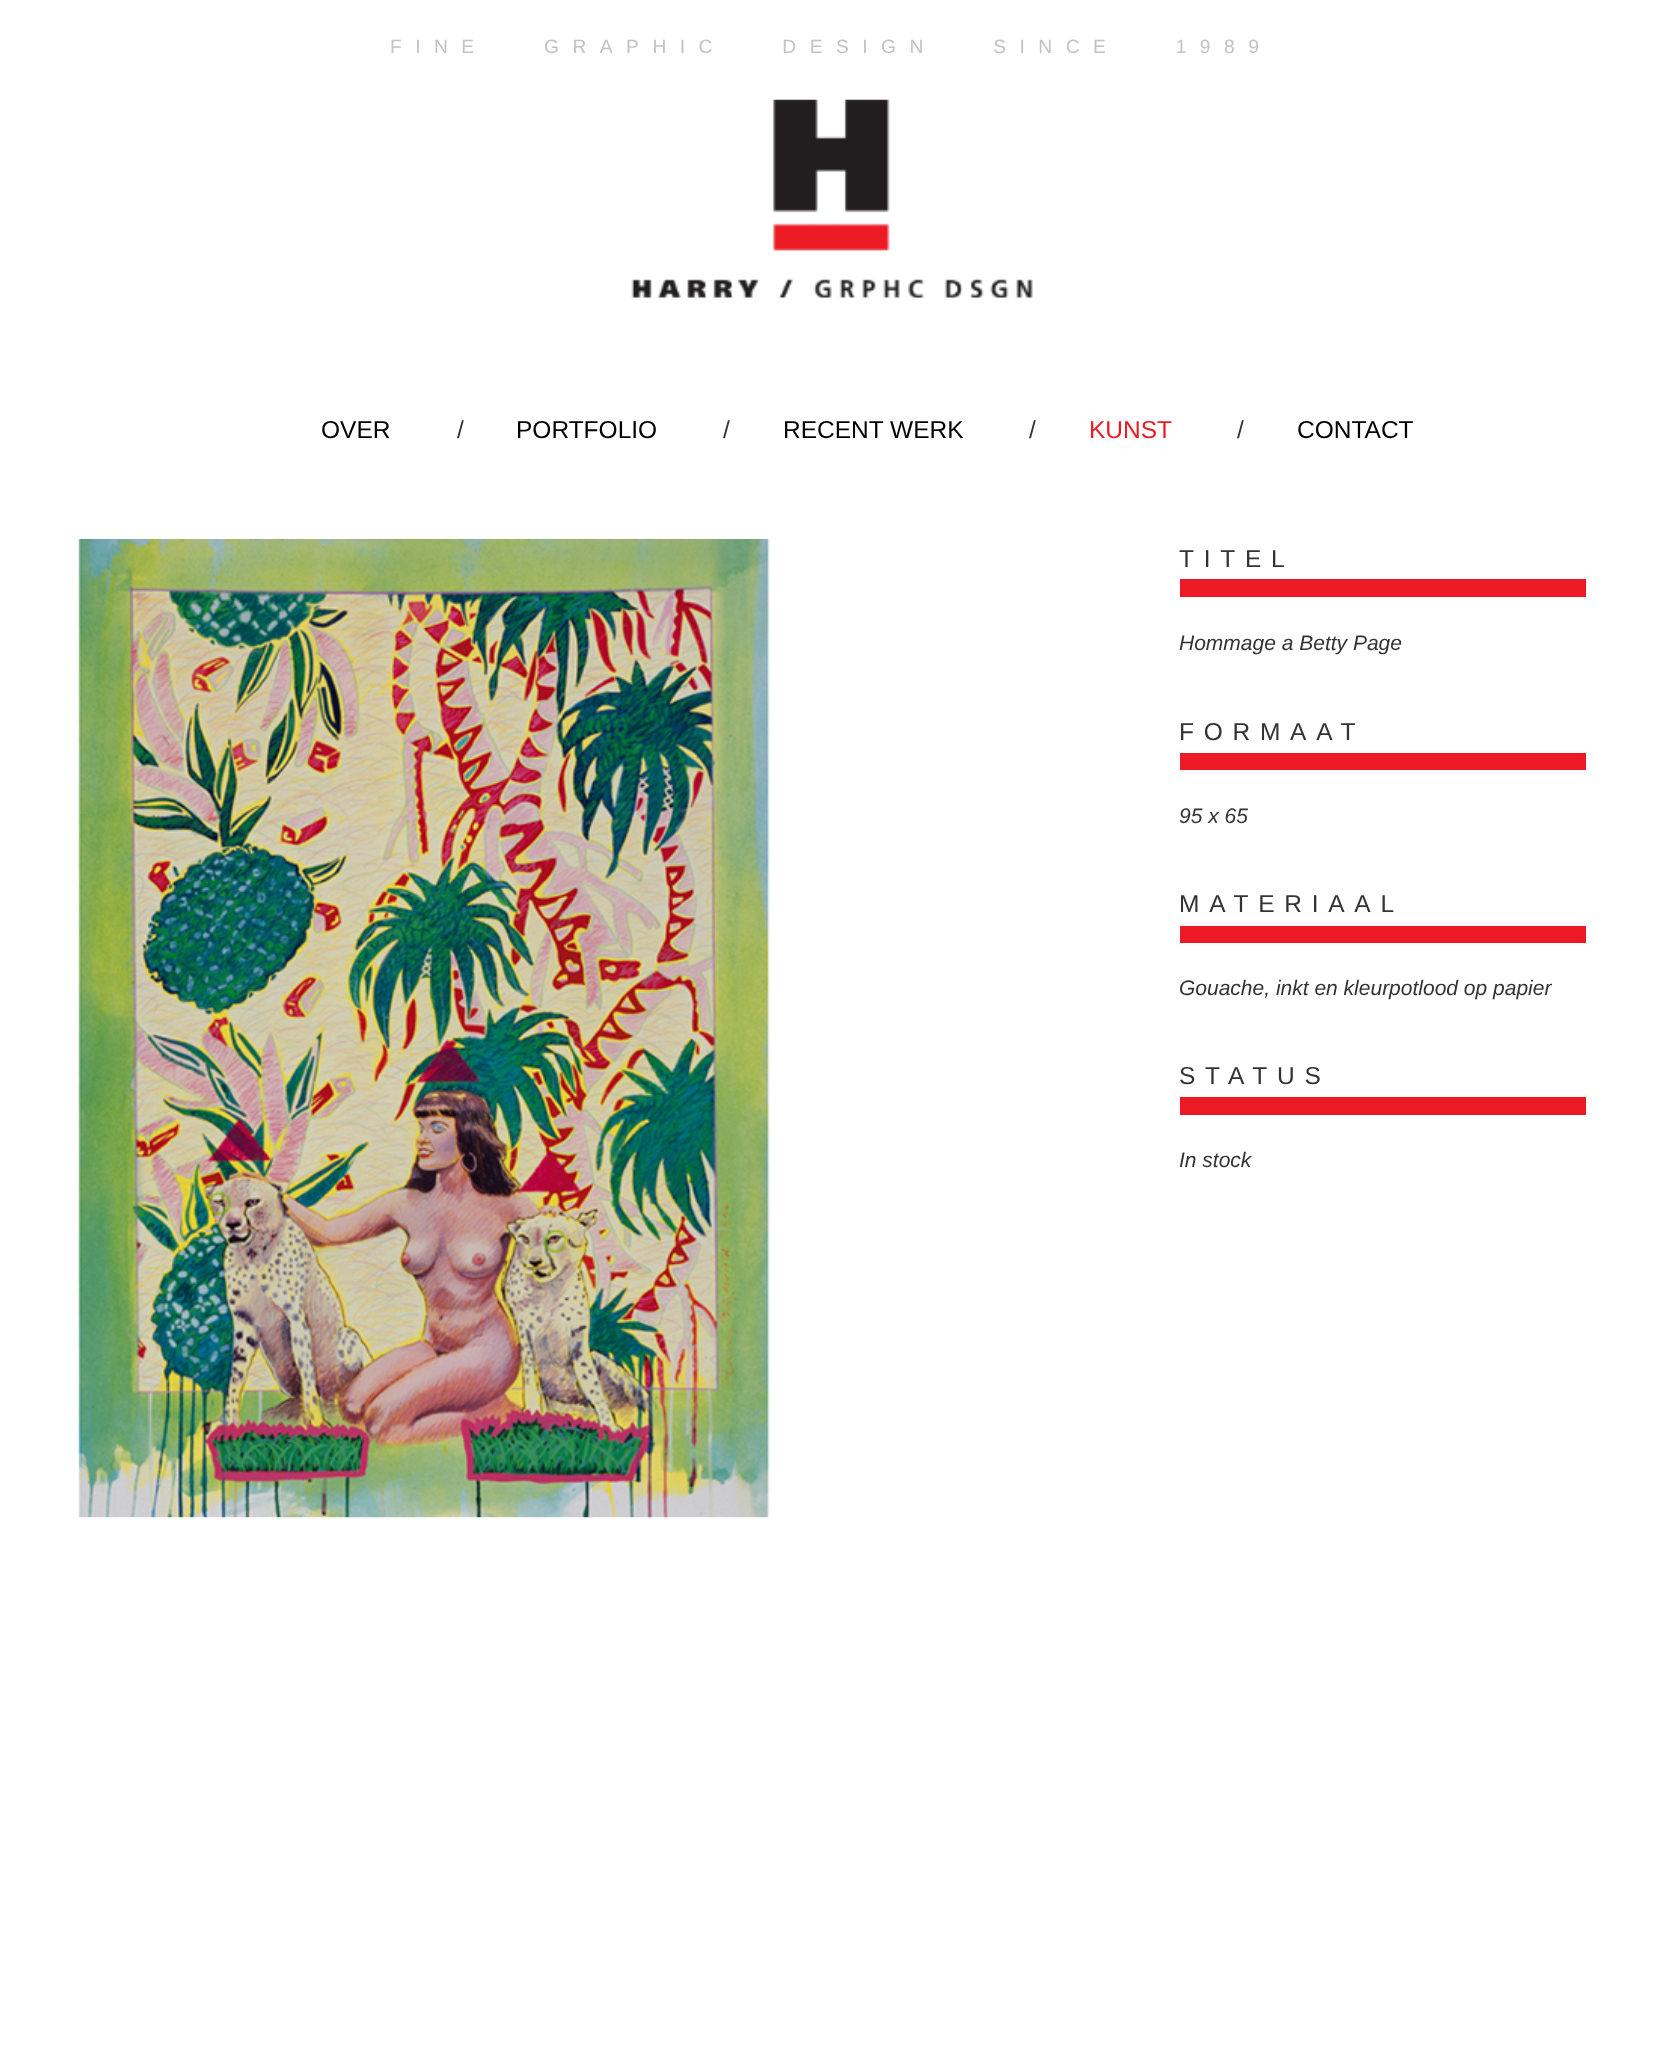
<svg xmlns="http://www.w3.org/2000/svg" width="1664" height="2050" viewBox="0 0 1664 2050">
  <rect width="100%" height="100%" fill="#ffffff"/>
  <text x="390" y="53" font-family="Liberation Sans" font-size="19.25" letter-spacing="13.45" fill="#c3c3c3" xml:space="preserve">FINE   GRAPHIC   DESIGN   SINCE   1989</text>
  <image x="631" y="99" width="402" height="200" href="img1.png"/>
  <text x="321" y="438" font-family="Liberation Sans" font-size="24.5" fill="#000000">OVER</text>
  <text x="457" y="438" font-family="Liberation Sans" font-size="24.5" fill="#333333">/</text>
  <text x="516" y="438" font-family="Liberation Sans" font-size="24.5" fill="#000000">PORTFOLIO</text>
  <text x="723" y="438" font-family="Liberation Sans" font-size="24.5" fill="#333333">/</text>
  <text x="783" y="438" font-family="Liberation Sans" font-size="24.5" fill="#000000">RECENT WERK</text>
  <text x="1029" y="438" font-family="Liberation Sans" font-size="24.5" fill="#333333">/</text>
  <text x="1089" y="438" font-family="Liberation Sans" font-size="24.5" fill="#eb1a24">KUNST</text>
  <text x="1237" y="438" font-family="Liberation Sans" font-size="24.5" fill="#333333">/</text>
  <text x="1297" y="438" font-family="Liberation Sans" font-size="24.5" fill="#000000">CONTACT</text>
  <image x="78" y="539" width="692" height="979" href="img2.png"/>
  <rect x="1180" y="579" width="406" height="18" fill="#eb1a24"/>
  <text x="1179" y="567" font-family="Liberation Sans" font-size="24.5" letter-spacing="9.75" fill="#333333">TITEL</text>
  <text x="1179" y="650" font-family="Liberation Sans" font-size="21" font-style="italic" fill="#333333">Hommage a Betty Page</text>
  <rect x="1180" y="753" width="406" height="17" fill="#eb1a24"/>
  <text x="1179" y="740" font-family="Liberation Sans" font-size="24.5" letter-spacing="9.75" fill="#333333">FORMAAT</text>
  <text x="1179" y="823" font-family="Liberation Sans" font-size="21" font-style="italic" fill="#333333">95 x 65</text>
  <rect x="1180" y="926" width="406" height="17" fill="#eb1a24"/>
  <text x="1179" y="912" font-family="Liberation Sans" font-size="24.5" letter-spacing="9.75" fill="#333333">MATERIAAL</text>
  <text x="1179" y="995" font-family="Liberation Sans" font-size="21" font-style="italic" fill="#333333">Gouache, inkt en kleurpotlood op papier</text>
  <rect x="1180" y="1097" width="406" height="18" fill="#eb1a24"/>
  <text x="1179" y="1084" font-family="Liberation Sans" font-size="24.5" letter-spacing="9.75" fill="#333333">STATUS</text>
  <text x="1179" y="1167" font-family="Liberation Sans" font-size="21" font-style="italic" fill="#333333">In stock</text>
</svg>
